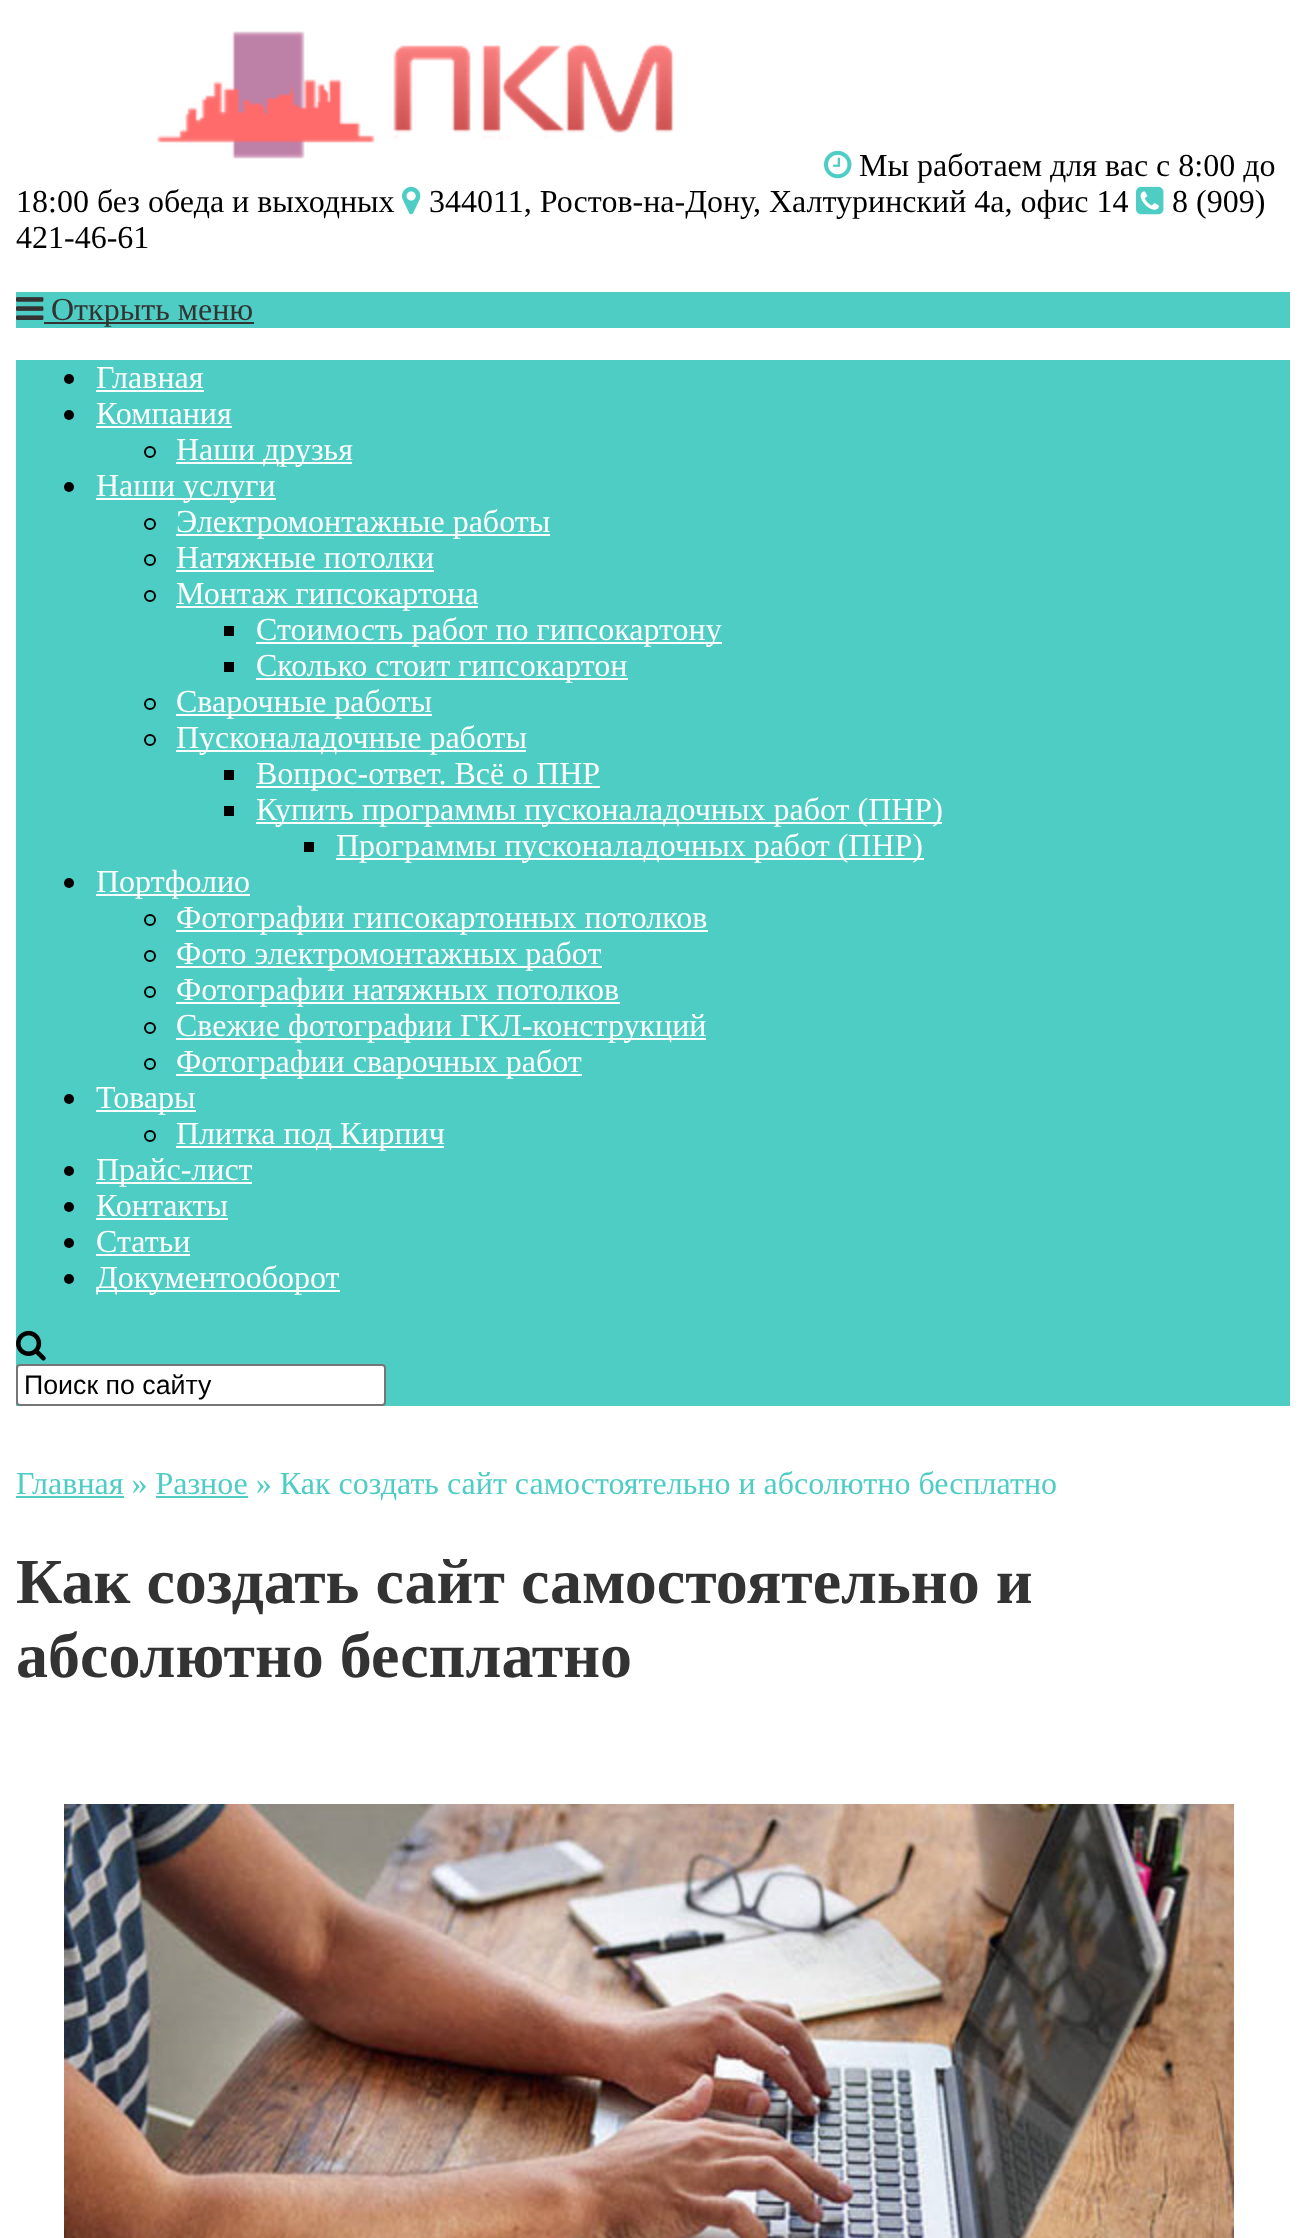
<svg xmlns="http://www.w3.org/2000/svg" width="1306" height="2238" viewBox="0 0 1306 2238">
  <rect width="100%" height="100%" fill="#ffffff"/>
  <image x="157" y="31" width="517" height="128" href="img1.png"/>
  <image x="824" y="150" width="28" height="29" href="img2.png"/>
  <text x="859" y="176" font-family="Liberation Serif" font-size="32" fill="#000000">Мы работаем для вас с 8:00 до</text>
  <text x="16" y="212" font-family="Liberation Serif" font-size="32" fill="#000000">18:00 без обеда и выходных</text>
  <image x="1136" y="186" width="28" height="29" href="img3.png"/>
  <text x="1172" y="212" font-family="Liberation Serif" font-size="32" fill="#000000">8 (909)</text>
  <text x="16" y="248" font-family="Liberation Serif" font-size="32" fill="#000000">421-46-61</text>
  <image x="402" y="186" width="19" height="29" href="img4.png"/>
  <text x="429" y="212" font-family="Liberation Serif" font-size="32" fill="#000000">344011, Ростов-на-Дону, Халтуринский 4а, офис 14</text>
  <rect x="16" y="292" width="1274" height="36" fill="#4ecdc4"/>
  <image x="16" y="297" width="28" height="23" href="img5.png"/>
  <rect x="44" y="322" width="210" height="2" fill="#333333"/>
  <text x="51" y="320" font-family="Liberation Serif" font-size="32" fill="#333333">Открыть меню</text>
  <rect x="16" y="360" width="1274" height="1046" fill="#4ecdc4"/>
  <circle cx="69" cy="379" r="5" fill="#000000"/>
  <text x="96" y="388" font-family="Liberation Serif" font-size="32" fill="#ffffff">Главная</text>
  <rect x="96" y="390" width="108" height="2" fill="#ffffff"/>
  <circle cx="69" cy="415" r="5" fill="#000000"/>
  <text x="96" y="424" font-family="Liberation Serif" font-size="32" fill="#ffffff">Компания</text>
  <rect x="96" y="426" width="136" height="2" fill="#ffffff"/>
  <circle cx="150" cy="452" r="5" fill="none" stroke="#000000" stroke-width="2"/>
  <rect x="176" y="462" width="176" height="2" fill="#ffffff"/>
  <text x="176" y="460" font-family="Liberation Serif" font-size="32" fill="#ffffff">Наши друзья</text>
  <circle cx="69" cy="487" r="5" fill="#000000"/>
  <rect x="96" y="498" width="180" height="2" fill="#ffffff"/>
  <text x="96" y="496" font-family="Liberation Serif" font-size="32" fill="#ffffff">Наши услуги</text>
  <circle cx="150" cy="524" r="5" fill="none" stroke="#000000" stroke-width="2"/>
  <rect x="176" y="534" width="374" height="2" fill="#ffffff"/>
  <text x="176" y="532" font-family="Liberation Serif" font-size="32" fill="#ffffff">Электромонтажные работы</text>
  <circle cx="150" cy="560" r="5" fill="none" stroke="#000000" stroke-width="2"/>
  <text x="176" y="568" font-family="Liberation Serif" font-size="32" fill="#ffffff">Натяжные потолки</text>
  <rect x="176" y="570" width="258" height="2" fill="#ffffff"/>
  <circle cx="150" cy="596" r="5" fill="none" stroke="#000000" stroke-width="2"/>
  <rect x="176" y="606" width="302" height="2" fill="#ffffff"/>
  <text x="176" y="604" font-family="Liberation Serif" font-size="32" fill="#ffffff">Монтаж гипсокартона</text>
  <rect x="224" y="626" width="10" height="10" fill="#000000"/>
  <rect x="256" y="642" width="466" height="2" fill="#ffffff"/>
  <text x="256" y="640" font-family="Liberation Serif" font-size="32" fill="#ffffff">Стоимость работ по гипсокартону</text>
  <rect x="224" y="662" width="10" height="10" fill="#000000"/>
  <rect x="256" y="678" width="372" height="2" fill="#ffffff"/>
  <text x="256" y="676" font-family="Liberation Serif" font-size="32" fill="#ffffff">Сколько стоит гипсокартон</text>
  <circle cx="150" cy="704" r="5" fill="none" stroke="#000000" stroke-width="2"/>
  <rect x="176" y="714" width="256" height="2" fill="#ffffff"/>
  <text x="176" y="712" font-family="Liberation Serif" font-size="32" fill="#ffffff">Сварочные работы</text>
  <circle cx="150" cy="740" r="5" fill="none" stroke="#000000" stroke-width="2"/>
  <rect x="176" y="750" width="350" height="2" fill="#ffffff"/>
  <text x="176" y="748" font-family="Liberation Serif" font-size="32" fill="#ffffff">Пусконаладочные работы</text>
  <rect x="224" y="770" width="10" height="10" fill="#000000"/>
  <rect x="256" y="786" width="344" height="2" fill="#ffffff"/>
  <text x="256" y="784" font-family="Liberation Serif" font-size="32" fill="#ffffff">Вопрос-ответ. Всё о ПНР</text>
  <rect x="224" y="806" width="10" height="10" fill="#000000"/>
  <rect x="256" y="822" width="686" height="2" fill="#ffffff"/>
  <text x="256" y="820" font-family="Liberation Serif" font-size="32" fill="#ffffff">Купить программы пусконаладочных работ (ПНР)</text>
  <rect x="304" y="842" width="10" height="10" fill="#000000"/>
  <rect x="336" y="858" width="588" height="2" fill="#ffffff"/>
  <text x="336" y="856" font-family="Liberation Serif" font-size="32" fill="#ffffff">Программы пусконаладочных работ (ПНР)</text>
  <circle cx="69" cy="883" r="5" fill="#000000"/>
  <rect x="96" y="894" width="154" height="2" fill="#ffffff"/>
  <text x="96" y="892" font-family="Liberation Serif" font-size="32" fill="#ffffff">Портфолио</text>
  <circle cx="150" cy="920" r="5" fill="none" stroke="#000000" stroke-width="2"/>
  <rect x="176" y="930" width="532" height="2" fill="#ffffff"/>
  <text x="176" y="928" font-family="Liberation Serif" font-size="32" fill="#ffffff">Фотографии гипсокартонных потолков</text>
  <circle cx="150" cy="956" r="5" fill="none" stroke="#000000" stroke-width="2"/>
  <rect x="176" y="966" width="426" height="2" fill="#ffffff"/>
  <text x="176" y="964" font-family="Liberation Serif" font-size="32" fill="#ffffff">Фото электромонтажных работ</text>
  <circle cx="150" cy="992" r="5" fill="none" stroke="#000000" stroke-width="2"/>
  <rect x="176" y="1002" width="444" height="2" fill="#ffffff"/>
  <text x="176" y="1000" font-family="Liberation Serif" font-size="32" fill="#ffffff">Фотографии натяжных потолков</text>
  <circle cx="150" cy="1028" r="5" fill="none" stroke="#000000" stroke-width="2"/>
  <rect x="176" y="1038" width="530" height="2" fill="#ffffff"/>
  <text x="176" y="1036" font-family="Liberation Serif" font-size="32" fill="#ffffff">Свежие фотографии ГКЛ-конструкций</text>
  <circle cx="150" cy="1064" r="5" fill="none" stroke="#000000" stroke-width="2"/>
  <rect x="176" y="1074" width="406" height="2" fill="#ffffff"/>
  <text x="176" y="1072" font-family="Liberation Serif" font-size="32" fill="#ffffff">Фотографии сварочных работ</text>
  <circle cx="69" cy="1099" r="5" fill="#000000"/>
  <rect x="96" y="1110" width="100" height="2" fill="#ffffff"/>
  <text x="96" y="1108" font-family="Liberation Serif" font-size="32" fill="#ffffff">Товары</text>
  <circle cx="150" cy="1136" r="5" fill="none" stroke="#000000" stroke-width="2"/>
  <rect x="176" y="1146" width="268" height="2" fill="#ffffff"/>
  <text x="176" y="1144" font-family="Liberation Serif" font-size="32" fill="#ffffff">Плитка под Кирпич</text>
  <circle cx="69" cy="1171" r="5" fill="#000000"/>
  <rect x="96" y="1182" width="156" height="2" fill="#ffffff"/>
  <text x="96" y="1180" font-family="Liberation Serif" font-size="32" fill="#ffffff">Прайс-лист</text>
  <circle cx="69" cy="1207" r="5" fill="#000000"/>
  <text x="96" y="1216" font-family="Liberation Serif" font-size="32" fill="#ffffff">Контакты</text>
  <rect x="96" y="1218" width="132" height="2" fill="#ffffff"/>
  <circle cx="69" cy="1243" r="5" fill="#000000"/>
  <text x="96" y="1252" font-family="Liberation Serif" font-size="32" fill="#ffffff">Статьи</text>
  <rect x="96" y="1254" width="94" height="2" fill="#ffffff"/>
  <circle cx="69" cy="1279" r="5" fill="#000000"/>
  <rect x="96" y="1290" width="244" height="2" fill="#ffffff"/>
  <text x="96" y="1288" font-family="Liberation Serif" font-size="32" fill="#ffffff">Документооборот</text>
  <image x="16" y="1330" width="30" height="31" href="img6.png"/>
  <rect x="17" y="1365" width="368" height="40" rx="3" fill="#ffffff" stroke="#767676" stroke-width="2"/>
  <text x="24" y="1394" font-family="Liberation Sans" font-size="26.75" fill="#000000">Поиск по сайту</text>
  <rect x="16" y="1496" width="108" height="2" fill="#4ecdc4"/>
  <text x="16" y="1494" font-family="Liberation Serif" font-size="32" fill="#4ecdc4">Главная » Разное » Как создать сайт самостоятельно и абсолютно бесплатно</text>
  <rect x="156" y="1496" width="92" height="2" fill="#4ecdc4"/>
  <text x="16" y="1603" font-family="Liberation Serif" font-size="64" font-weight="bold" fill="#333333">Как создать сайт самостоятельно и</text>
  <text x="16" y="1677" font-family="Liberation Serif" font-size="64" font-weight="bold" fill="#333333">абсолютно бесплатно</text>
  <image x="64" y="1804" width="1170" height="434" href="img7.png"/>
</svg>
